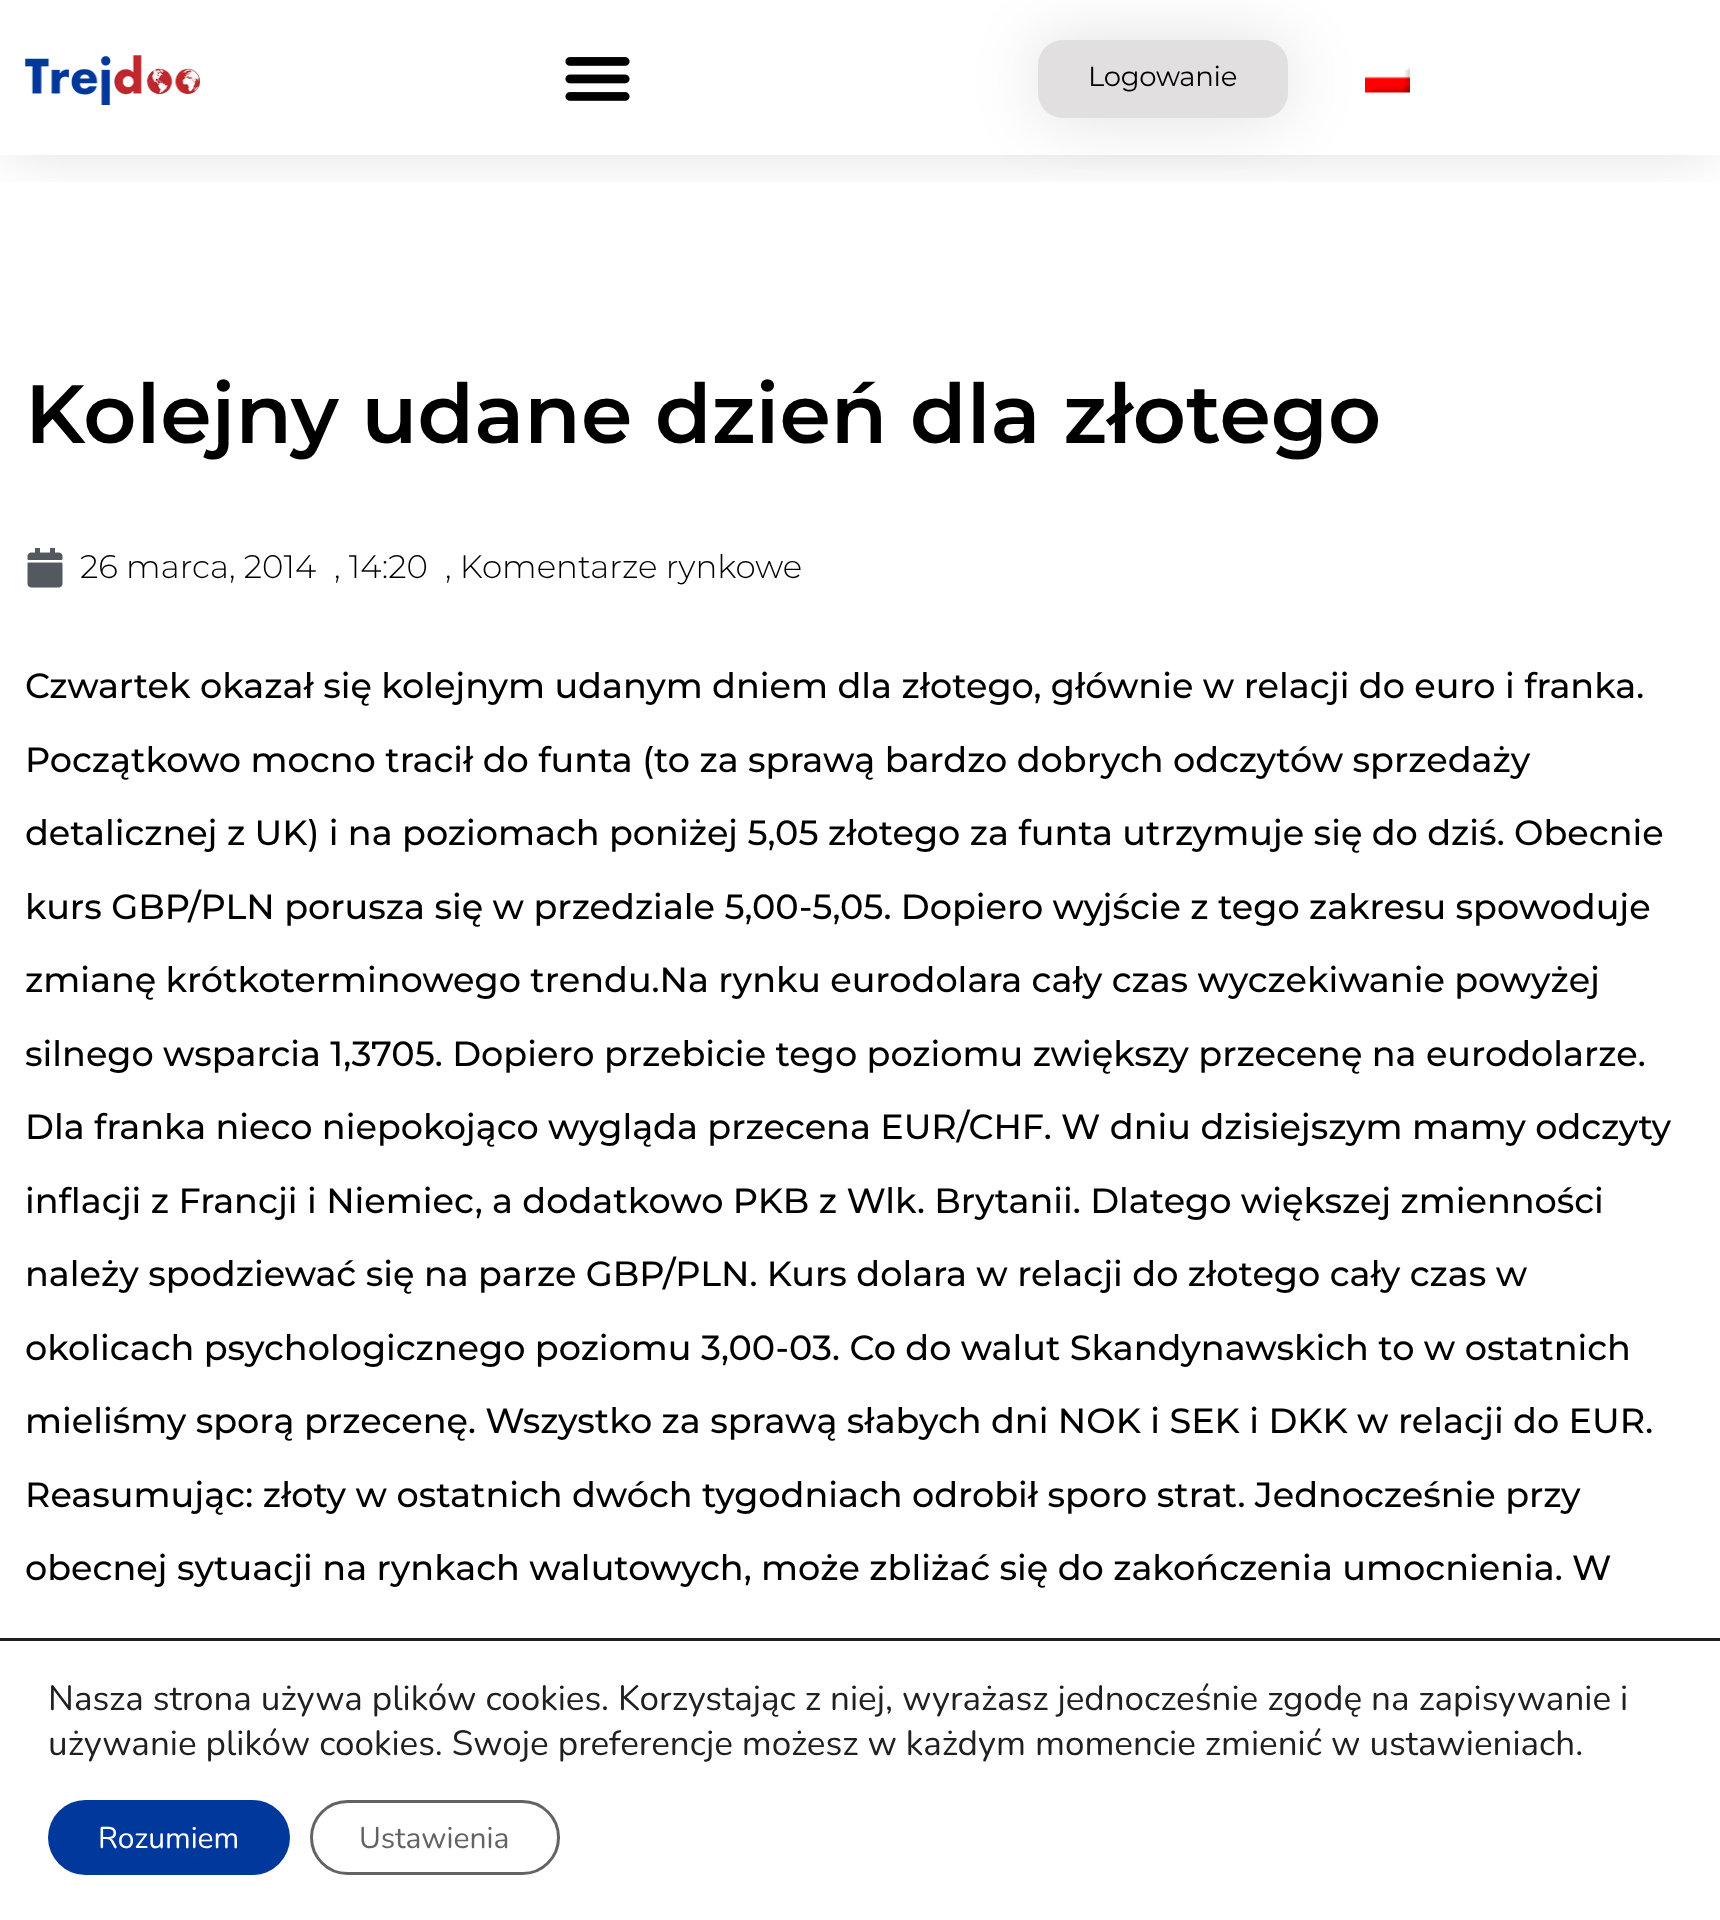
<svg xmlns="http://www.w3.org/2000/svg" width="1720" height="1920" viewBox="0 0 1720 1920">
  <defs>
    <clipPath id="clip1"><rect x="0" y="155" width="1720" height="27"/></clipPath>
    <filter id="blur1" x="-50%" y="-200%" width="200%" height="500%"><feGaussianBlur stdDeviation="31"/></filter>
    <filter id="blur2" x="-50%" y="-200%" width="200%" height="500%"><feGaussianBlur stdDeviation="34"/></filter>
  </defs>
  <rect width="100%" height="100%" fill="#ffffff"/>
  <g clip-path="url(#clip1)">
    <rect x="8" y="8" width="1705" height="140" fill="#000000" fill-opacity="0.15" filter="url(#blur1)"/>
  </g>
  <image x="25" y="55" width="175" height="50" href="img1.png"/>
  <image x="565" y="57" width="65" height="44" href="img2.png"/>
  <rect x="1038" y="40" width="250" height="78" rx="25" fill="#000000" fill-opacity="0.12" filter="url(#blur2)"/>
  <rect x="1038" y="40" width="250" height="78" rx="25" fill="#e1dfdf"/>
  <text x="1088" y="86" font-family="Montserrat" font-size="27.5" letter-spacing="-0.25" fill="#000000">Logowanie</text>
  <image x="1365" y="67" width="45" height="26" href="img3.png"/>
  <text x="25" y="443" font-family="Montserrat" font-size="82.5" font-weight="600" fill="#000000">Kolejny udane dzień dla złotego</text>
  <image x="27" y="548" width="36" height="40" href="img4.png"/>
  <text x="80" y="578" font-family="Montserrat" font-size="32.5" font-weight="300" fill="#000000">26 marca, 2014</text>
  <text x="334" y="578" font-family="Montserrat" font-size="32.5" font-weight="300" fill="#000000">, 14:20</text>
  <text x="445" y="578" font-family="Montserrat" font-size="32.5" font-weight="300" fill="#000000">, Komentarze rynkowe</text>
  <text x="25" y="698" font-family="Montserrat" font-size="35" font-weight="500" fill="#000000">Czwartek okazał się kolejnym udanym dniem dla złotego, głównie w relacji do euro i franka.</text>
  <text x="25" y="772" font-family="Montserrat" font-size="35" font-weight="500" fill="#000000">Początkowo mocno tracił do funta (to za sprawą bardzo dobrych odczytów sprzedaży</text>
  <text x="25" y="845" font-family="Montserrat" font-size="35" font-weight="500" fill="#000000">detalicznej z UK) i na poziomach poniżej 5,05 złotego za funta utrzymuje się do dziś. Obecnie</text>
  <text x="25" y="919" font-family="Montserrat" font-size="35" font-weight="500" fill="#000000">kurs GBP/PLN porusza się w przedziale 5,00-5,05. Dopiero wyjście z tego zakresu spowoduje</text>
  <text x="25" y="992" font-family="Montserrat" font-size="35" font-weight="500" fill="#000000">zmianę krótkoterminowego trendu.Na rynku eurodolara cały czas wyczekiwanie powyżej</text>
  <text x="25" y="1066" font-family="Montserrat" font-size="35" font-weight="500" fill="#000000">silnego wsparcia 1,3705. Dopiero przebicie tego poziomu zwiększy przecenę na eurodolarze.</text>
  <text x="25" y="1139" font-family="Montserrat" font-size="35" font-weight="500" fill="#000000">Dla franka nieco niepokojąco wygląda przecena EUR/CHF. W dniu dzisiejszym mamy odczyty</text>
  <text x="25" y="1213" font-family="Montserrat" font-size="35" font-weight="500" fill="#000000">inflacji z Francji i Niemiec, a dodatkowo PKB z Wlk. Brytanii. Dlatego większej zmienności</text>
  <text x="25" y="1286" font-family="Montserrat" font-size="35" font-weight="500" fill="#000000">należy spodziewać się na parze GBP/PLN. Kurs dolara w relacji do złotego cały czas w</text>
  <text x="25" y="1360" font-family="Montserrat" font-size="35" font-weight="500" fill="#000000">okolicach psychologicznego poziomu 3,00-03. Co do walut Skandynawskich to w ostatnich</text>
  <text x="25" y="1433" font-family="Montserrat" font-size="35" font-weight="500" fill="#000000">mieliśmy sporą przecenę. Wszystko za sprawą słabych dni NOK i SEK i DKK w relacji do EUR.</text>
  <text x="25" y="1507" font-family="Montserrat" font-size="35" font-weight="500" fill="#000000">Reasumując: złoty w ostatnich dwóch tygodniach odrobił sporo strat. Jednocześnie przy</text>
  <text x="25" y="1580" font-family="Montserrat" font-size="35" font-weight="500" fill="#000000">obecnej sytuacji na rynkach walutowych, może zbliżać się do zakończenia umocnienia. W</text>
  <rect x="0" y="1638" width="1720" height="3" fill="#202020"/>
  <text x="48" y="1710" font-family="Nunito" font-size="35" fill="#202020">Nasza strona używa plików cookies. Korzystając z niej, wyrażasz jednocześnie zgodę na zapisywanie i</text>
  <text x="48" y="1755" font-family="Nunito" font-size="35" fill="#202020">używanie plików cookies. Swoje preferencje możesz w każdym momencie zmienić w ustawieniach.</text>
  <rect x="48" y="1800" width="242" height="75" rx="37.5" fill="#01389c"/>
  <text x="98" y="1848" font-family="Nunito" font-size="30" fill="#ffffff">Rozumiem</text>
  <rect x="311.5" y="1801.5" width="247" height="72" rx="36" fill="none" stroke="#636363" stroke-width="3"/>
  <text x="359" y="1848" font-family="Nunito" font-size="30" fill="#636363">Ustawienia</text>
</svg>
